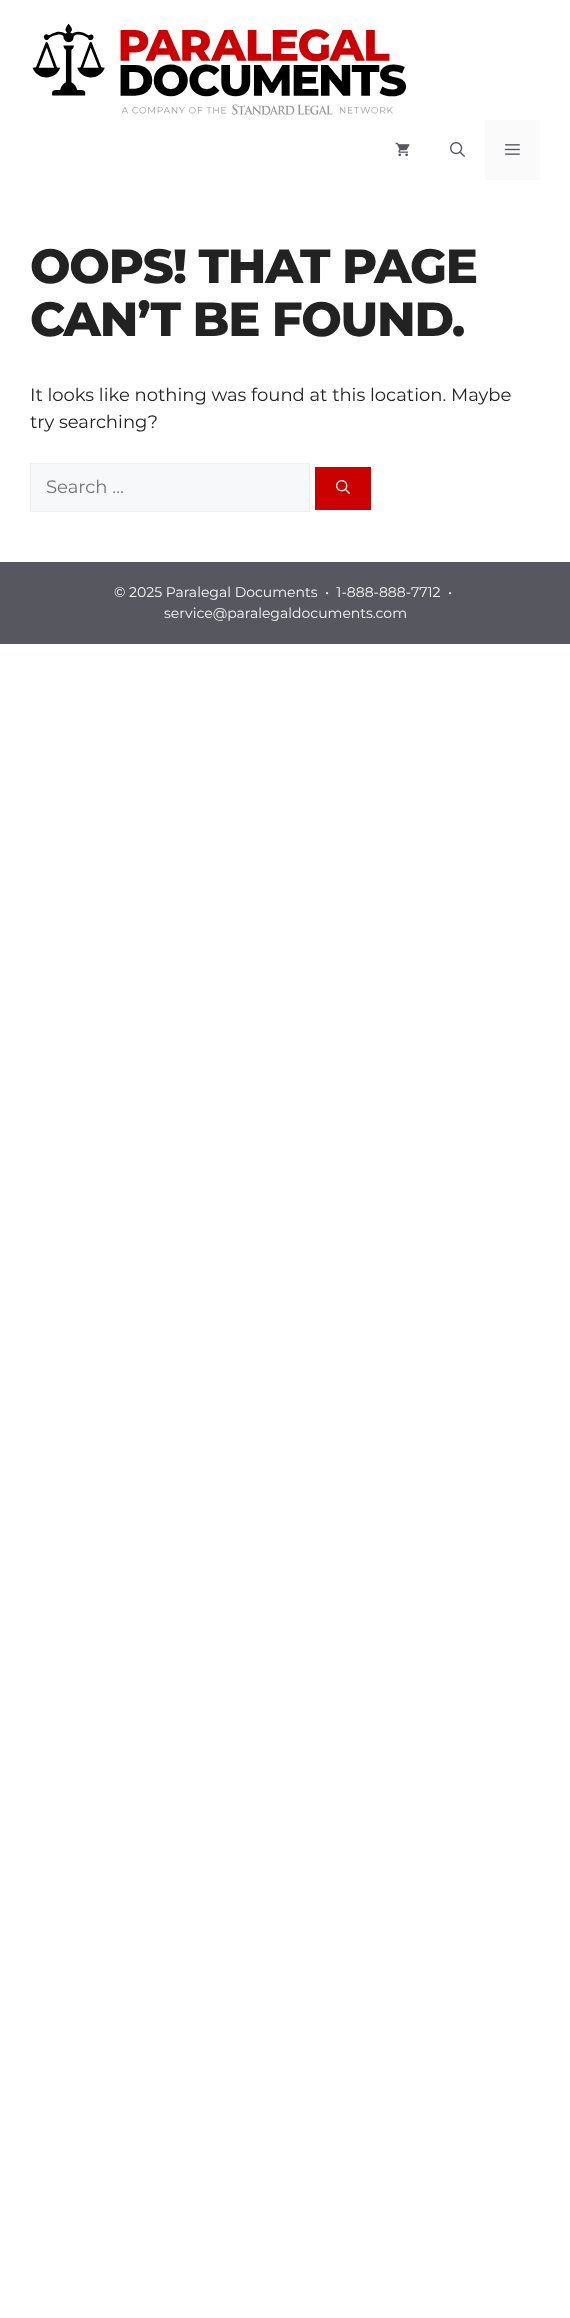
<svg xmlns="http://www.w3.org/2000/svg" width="570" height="2318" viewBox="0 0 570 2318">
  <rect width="100%" height="100%" fill="#ffffff"/>
  <image x="32" y="23" width="375" height="92" href="img1.png"/>
  <image x="395" y="142" width="15" height="15" href="img2.png"/>
  <image x="450" y="142" width="15" height="15" href="img3.png"/>
  <rect x="485" y="120" width="55" height="60" fill="#fafafa"/>
  <image x="505" y="144" width="15" height="11" href="img4.png"/>
  <text x="30" y="283" font-family="Montserrat" font-size="48" font-weight="800" letter-spacing="-1.25" fill="#222222">OOPS! THAT PAGE</text>
  <text x="30" y="336" font-family="Montserrat" font-size="48" font-weight="800" letter-spacing="-1.25" fill="#222222">CAN’T BE FOUND.</text>
  <text x="30" y="401" font-family="Montserrat" font-size="18" fill="#222222">It looks like nothing was found at this location. Maybe</text>
  <text x="30" y="428" font-family="Montserrat" font-size="18" fill="#222222">try searching?</text>
  <rect x="30.5" y="463.5" width="279" height="48" fill="#f7f8f9" stroke="#f0f0f0"/>
  <text x="46" y="493" font-family="Montserrat" font-size="18" fill="#757575">Search …</text>
  <rect x="315" y="467" width="56" height="43" fill="#cc0000"/>
  <image x="336" y="480" width="14" height="14" href="img5.png"/>
  <rect x="0" y="562" width="570" height="82" fill="#575760"/>
  <text x="114" y="597" font-family="Montserrat" font-size="14" fill="#f7f8f9" xml:space="preserve">© 2025 Paralegal Documents  •  1-888-888-7712  •</text>
  <text x="164" y="618" font-family="Montserrat" font-size="14" fill="#f7f8f9">service@paralegaldocuments.com</text>
</svg>
